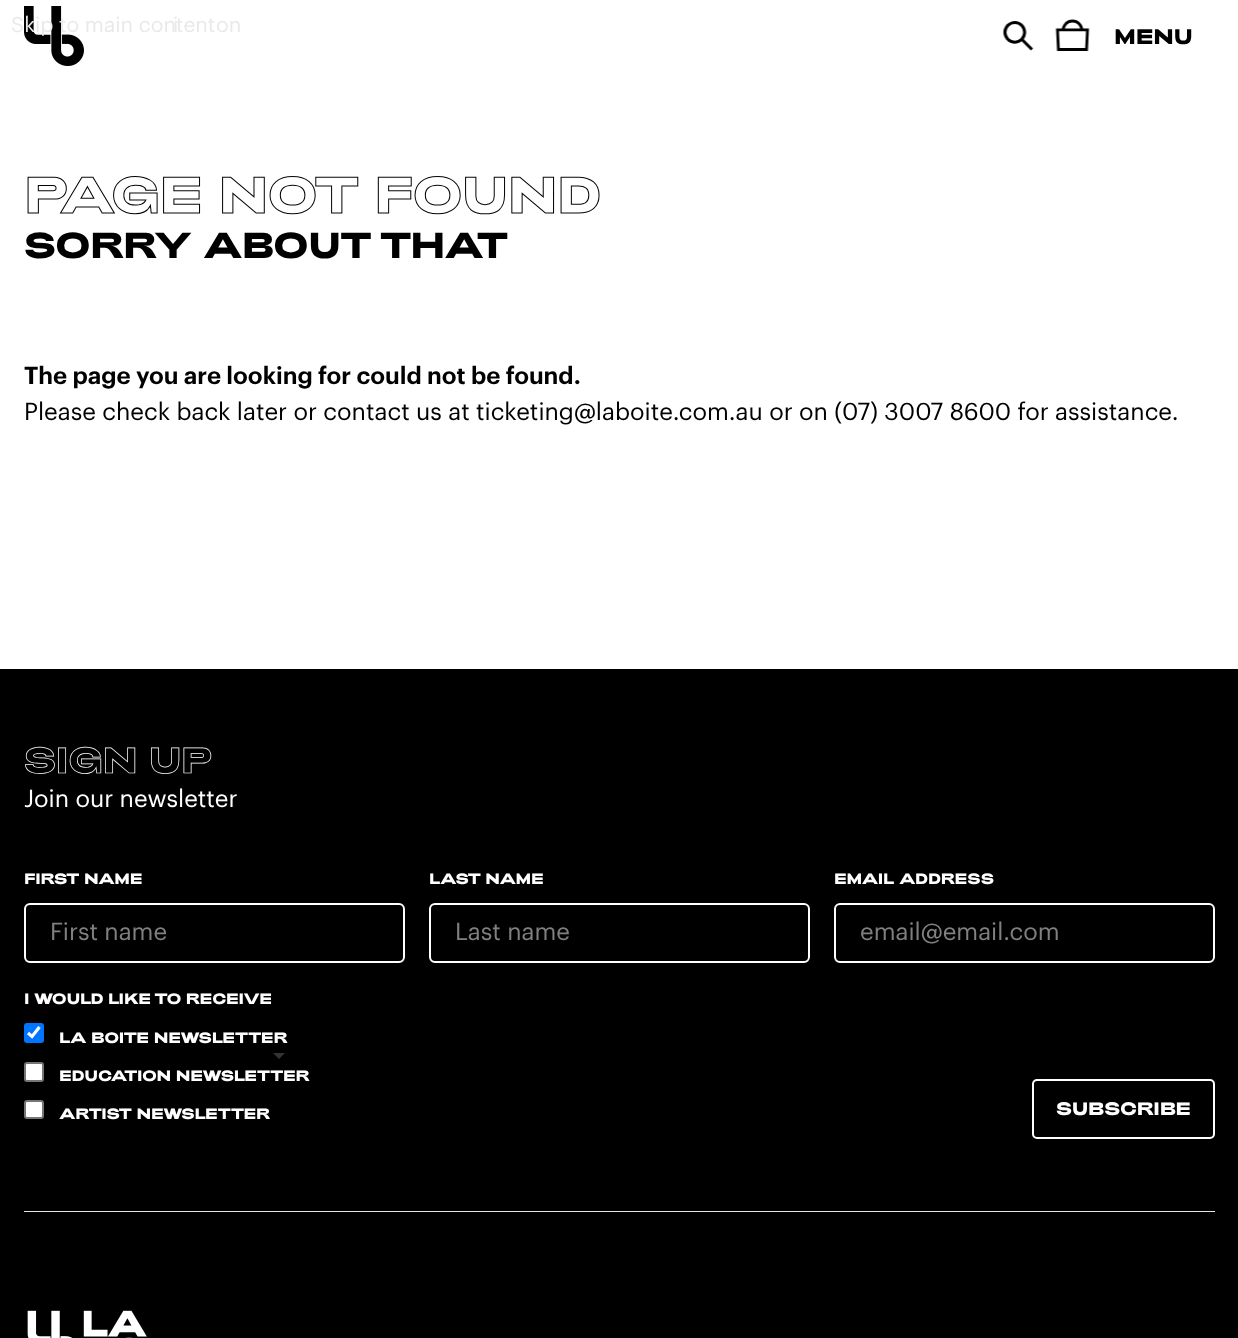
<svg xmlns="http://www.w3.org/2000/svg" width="1238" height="1338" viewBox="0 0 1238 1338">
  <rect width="100%" height="100%" fill="#000000"/>
  <rect x="0" y="0" width="1238" height="669" fill="#ffffff"/>
  <image x="24" y="6" width="60" height="60" href="img1.png"/>
  <text x="11" y="32" font-family="Graphik" font-size="21" fill="#e9e9e9">Skip to main content</text>
  <text x="173" y="32" font-family="Graphik" font-size="21" fill="#e9e9e9">i</text>
  <text x="216" y="32" font-family="Graphik" font-size="21" fill="#e9e9e9">on</text>
  <image x="1002" y="21" width="32" height="30" href="img2.png"/>
  <image x="1055" y="19" width="35" height="32" href="img3.png"/>
  <text x="1114" y="44" font-family="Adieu" font-size="21" font-weight="900" fill="#000000">MENU</text>
  <text x="24" y="213" font-family="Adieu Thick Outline" font-size="51" font-weight="900" fill="#000000">PAGE NOT FOUND</text>
  <text x="24" y="258" font-family="Adieu" font-size="36" font-weight="900" fill="#000000">SORRY ABOUT THAT</text>
  <text x="24" y="384" font-family="Graphik" font-size="24" font-weight="600" fill="#000000">The page you are looking for could not be found.</text>
  <text x="24" y="420" font-family="Graphik" font-size="24" fill="#000000">Please check back later or contact us at ticketing@laboite.com.au or on (07) 3007 8600 for assistance.</text>
  <text x="24" y="773" font-family="Adieu Thick Outline" font-size="36" font-weight="900" fill="#ffffff">SIGN UP</text>
  <text x="24" y="807" font-family="Graphik" font-size="24" fill="#ffffff">Join our newsletter</text>
  <text x="24" y="884" font-family="Adieu" font-size="15" font-weight="900" fill="#ffffff">FIRST NAME</text>
  <rect x="25" y="904" width="379" height="58" rx="5" fill="none" stroke="#ffffff" stroke-width="2"/>
  <text x="50" y="940" font-family="Graphik" font-size="24" fill="#808080">First name</text>
  <text x="429" y="884" font-family="Adieu" font-size="15" font-weight="900" fill="#ffffff">LAST NAME</text>
  <rect x="430" y="904" width="379" height="58" rx="5" fill="none" stroke="#ffffff" stroke-width="2"/>
  <text x="455" y="940" font-family="Graphik" font-size="24" fill="#808080">Last name</text>
  <text x="834" y="884" font-family="Adieu" font-size="15" font-weight="900" fill="#ffffff">EMAIL ADDRESS</text>
  <rect x="835" y="904" width="379" height="58" rx="5" fill="none" stroke="#ffffff" stroke-width="2"/>
  <text x="860" y="940" font-family="Graphik" font-size="24" fill="#808080">email@email.com</text>
  <text x="24" y="1004" font-family="Adieu" font-size="15" font-weight="900" fill="#ffffff">I WOULD LIKE TO RECEIVE</text>
  <rect x="24" y="1023" width="20" height="20" rx="3" fill="#0075ff"/>
  <path d="M28 1033L32 1036.5L39.5 1027" fill="none" stroke="#ffffff" stroke-width="3.1"/>
  <text x="59" y="1043" font-family="Adieu" font-size="15" font-weight="900" fill="#ffffff">LA BOITE NEWSLETTER</text>
  <path d="M273 1053H285L279 1059Z" fill="#333333"/>
  <rect x="25" y="1063" width="18" height="18" rx="2" fill="#ffffff" stroke="#767676" stroke-width="2"/>
  <text x="59" y="1081" font-family="Adieu" font-size="15" font-weight="900" fill="#ffffff">EDUCATION NEWSLETTER</text>
  <rect x="25" y="1101" width="18" height="17" rx="2" fill="#ffffff" stroke="#767676" stroke-width="2"/>
  <text x="59" y="1119" font-family="Adieu" font-size="15" font-weight="900" fill="#ffffff">ARTIST NEWSLETTER</text>
  <rect x="1033" y="1080" width="181" height="58" rx="4" fill="none" stroke="#ffffff" stroke-width="2"/>
  <text x="1056" y="1115" font-family="Adieu" font-size="18" font-weight="900" fill="#ffffff">SUBSCRIBE</text>
  <rect x="24" y="1211" width="1191" height="1" fill="#e6e6e6"/>
  <image x="27" y="1310" width="120" height="28" href="img4.png"/>
</svg>
